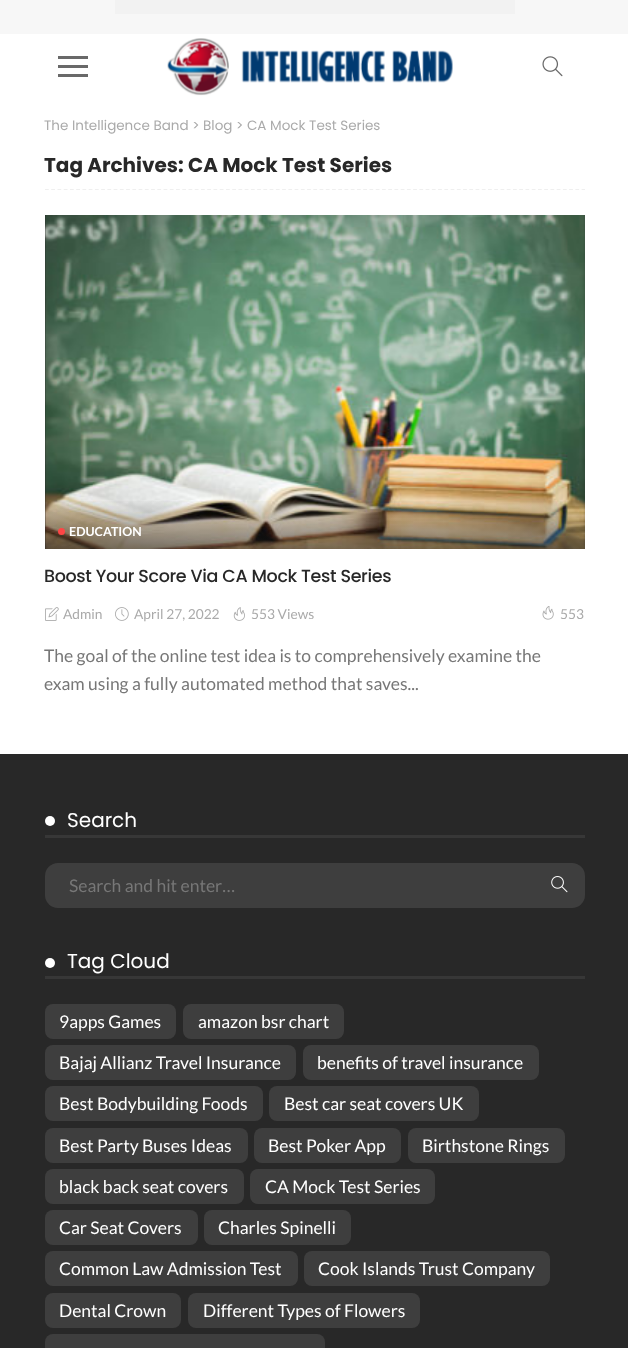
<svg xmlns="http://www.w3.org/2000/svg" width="628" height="1348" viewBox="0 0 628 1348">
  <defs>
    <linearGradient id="g1" gradientUnits="userSpaceOnUse" x1="315" y1="499" x2="315" y2="550"><stop offset="0" stop-color="#222222" stop-opacity="0"/><stop offset="0.3" stop-color="#222222" stop-opacity="0.17"/><stop offset="1" stop-color="#222222" stop-opacity="0.56"/></linearGradient>
  </defs>
  <rect width="100%" height="100%" fill="#ffffff"/>
  <rect x="0" y="0" width="628" height="34" fill="#f7f7f7"/>
  <rect x="115" y="0" width="400" height="14" fill="#f2f2f2"/>
  <rect x="58" y="65" width="30" height="3" fill="#696969"/>
  <rect x="58" y="56" width="30" height="3" fill="#696969"/>
  <rect x="58" y="74" width="30" height="3" fill="#696969"/>
  <image x="167" y="38" width="286" height="58" href="img1.png"/>
  <image x="542" y="56" width="21" height="21" href="img2.png"/>
  <text x="44" y="130" font-family="Poppins" font-size="13.5" fill="#aaaaaa">The Intelligence Band &gt; Blog &gt; CA Mock Test Series</text>
  <path d="M45 189.5H585" fill="none" stroke="#efefef" stroke-width="1.2" stroke-dasharray="3.75 2.49"/>
  <text x="44" y="172" font-family="Poppins" font-size="20" font-weight="bold" fill="#282828">Tag Archives: CA Mock Test Series</text>
  <rect x="45" y="215" width="540" height="334" fill="#282828"/>
  <image x="45" y="215" width="540" height="334" href="img3.png"/>
  <rect x="45" y="501" width="540" height="48" fill="url(#g1)"/>
  <circle cx="61.5" cy="531.5" r="3.5" fill="#ff4545"/>
  <text x="69" y="536" font-family="Lato" font-size="12.5" font-weight="bold" fill="#ffffff">EDUCATION</text>
  <text x="44" y="582" font-family="Poppins" font-size="17.5" font-weight="500" letter-spacing="-0.35" fill="#282828">Boost Your Score Via CA Mock Test Series</text>
  <image x="45" y="607" width="14" height="14" href="img4.png"/>
  <text x="63" y="619" font-family="Lato" font-size="13.75" fill="#aaaaaa">Admin</text>
  <image x="115" y="607" width="14" height="14" href="img5.png"/>
  <text x="134" y="619" font-family="Lato" font-size="13.75" fill="#aaaaaa">April 27, 2022</text>
  <image x="233" y="607" width="12" height="14" href="img6.png"/>
  <text x="251" y="619" font-family="Lato" font-size="13.75" fill="#aaaaaa">553 Views</text>
  <image x="542" y="606" width="12" height="14" href="img7.png"/>
  <text x="560" y="619" font-family="Lato" font-size="13.75" fill="#aaaaaa">553</text>
  <text x="44" y="662" font-family="Lato" font-size="17.5" fill="#777777">The goal of the online test idea is to comprehensively examine the</text>
  <text x="44" y="690" font-family="Lato" font-size="17.5" fill="#777777">exam using a fully automated method that saves...</text>
  <rect x="0" y="754" width="628" height="594" fill="#282828"/>
  <rect x="45" y="835" width="540" height="3" fill="#373737"/>
  <circle cx="50" cy="821" r="5" fill="#ffffff"/>
  <text x="67" y="827" font-family="Poppins" font-size="20" fill="#ffffff">Search</text>
  <rect x="45" y="863" width="540" height="45" rx="13" fill="#3e3e3e"/>
  <text x="69" y="892" font-family="Lato" font-size="17.5" fill="#777777">Search and hit enter…</text>
  <image x="551" y="876" width="17" height="17" href="img8.png"/>
  <rect x="45" y="976" width="540" height="3" fill="#373737"/>
  <circle cx="50" cy="963" r="5" fill="#ffffff"/>
  <text x="67" y="968" font-family="Poppins" font-size="20" fill="#ffffff">Tag Cloud</text>
  <rect x="45" y="1004" width="131" height="35" rx="8" fill="#3e3e3e"/>
  <text x="59" y="1028" font-family="Lato" font-size="17.5" fill="#ffffff">9apps Games</text>
  <rect x="183" y="1004" width="161" height="35" rx="8" fill="#3e3e3e"/>
  <text x="198" y="1028" font-family="Lato" font-size="17.5" fill="#ffffff">amazon bsr chart</text>
  <rect x="45" y="1045" width="251" height="35" rx="8" fill="#3e3e3e"/>
  <text x="59" y="1069" font-family="Lato" font-size="17.5" fill="#ffffff">Bajaj Allianz Travel Insurance</text>
  <rect x="303" y="1045" width="236" height="35" rx="8" fill="#3e3e3e"/>
  <text x="317" y="1069" font-family="Lato" font-size="17.5" fill="#ffffff">benefits of travel insurance</text>
  <rect x="45" y="1086" width="218" height="35" rx="8" fill="#3e3e3e"/>
  <text x="59" y="1110" font-family="Lato" font-size="17.5" fill="#ffffff">Best Bodybuilding Foods</text>
  <rect x="269" y="1086" width="210" height="35" rx="8" fill="#3e3e3e"/>
  <text x="284" y="1110" font-family="Lato" font-size="17.5" fill="#ffffff">Best car seat covers UK</text>
  <rect x="45" y="1128" width="203" height="35" rx="8" fill="#3e3e3e"/>
  <text x="59" y="1152" font-family="Lato" font-size="17.5" fill="#ffffff">Best Party Buses Ideas</text>
  <rect x="254" y="1128" width="147" height="35" rx="8" fill="#3e3e3e"/>
  <text x="268" y="1152" font-family="Lato" font-size="17.5" fill="#ffffff">Best Poker App</text>
  <rect x="408" y="1128" width="157" height="35" rx="8" fill="#3e3e3e"/>
  <text x="422" y="1152" font-family="Lato" font-size="17.5" fill="#ffffff">Birthstone Rings</text>
  <rect x="45" y="1169" width="199" height="35" rx="8" fill="#3e3e3e"/>
  <text x="59" y="1193" font-family="Lato" font-size="17.5" fill="#ffffff">black back seat covers</text>
  <rect x="250" y="1169" width="185" height="35" rx="8" fill="#3e3e3e"/>
  <text x="265" y="1193" font-family="Lato" font-size="17.5" fill="#ffffff">CA Mock Test Series</text>
  <rect x="45" y="1210" width="153" height="35" rx="8" fill="#3e3e3e"/>
  <text x="59" y="1234" font-family="Lato" font-size="17.5" fill="#ffffff">Car Seat Covers</text>
  <rect x="204" y="1210" width="147" height="35" rx="8" fill="#3e3e3e"/>
  <text x="218" y="1234" font-family="Lato" font-size="17.5" fill="#ffffff">Charles Spinelli</text>
  <rect x="45" y="1251" width="253" height="35" rx="8" fill="#3e3e3e"/>
  <text x="59" y="1275" font-family="Lato" font-size="17.5" fill="#ffffff">Common Law Admission Test</text>
  <rect x="304" y="1251" width="246" height="35" rx="8" fill="#3e3e3e"/>
  <text x="318" y="1275" font-family="Lato" font-size="17.5" fill="#ffffff">Cook Islands Trust Company</text>
  <rect x="45" y="1293" width="136" height="35" rx="8" fill="#3e3e3e"/>
  <text x="59" y="1317" font-family="Lato" font-size="17.5" fill="#ffffff">Dental Crown</text>
  <rect x="188" y="1293" width="232" height="35" rx="8" fill="#3e3e3e"/>
  <text x="203" y="1317" font-family="Lato" font-size="17.5" fill="#ffffff">Different Types of Flowers</text>
  <rect x="45" y="1334" width="280" height="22" rx="8" fill="#3e3e3e"/>
</svg>
